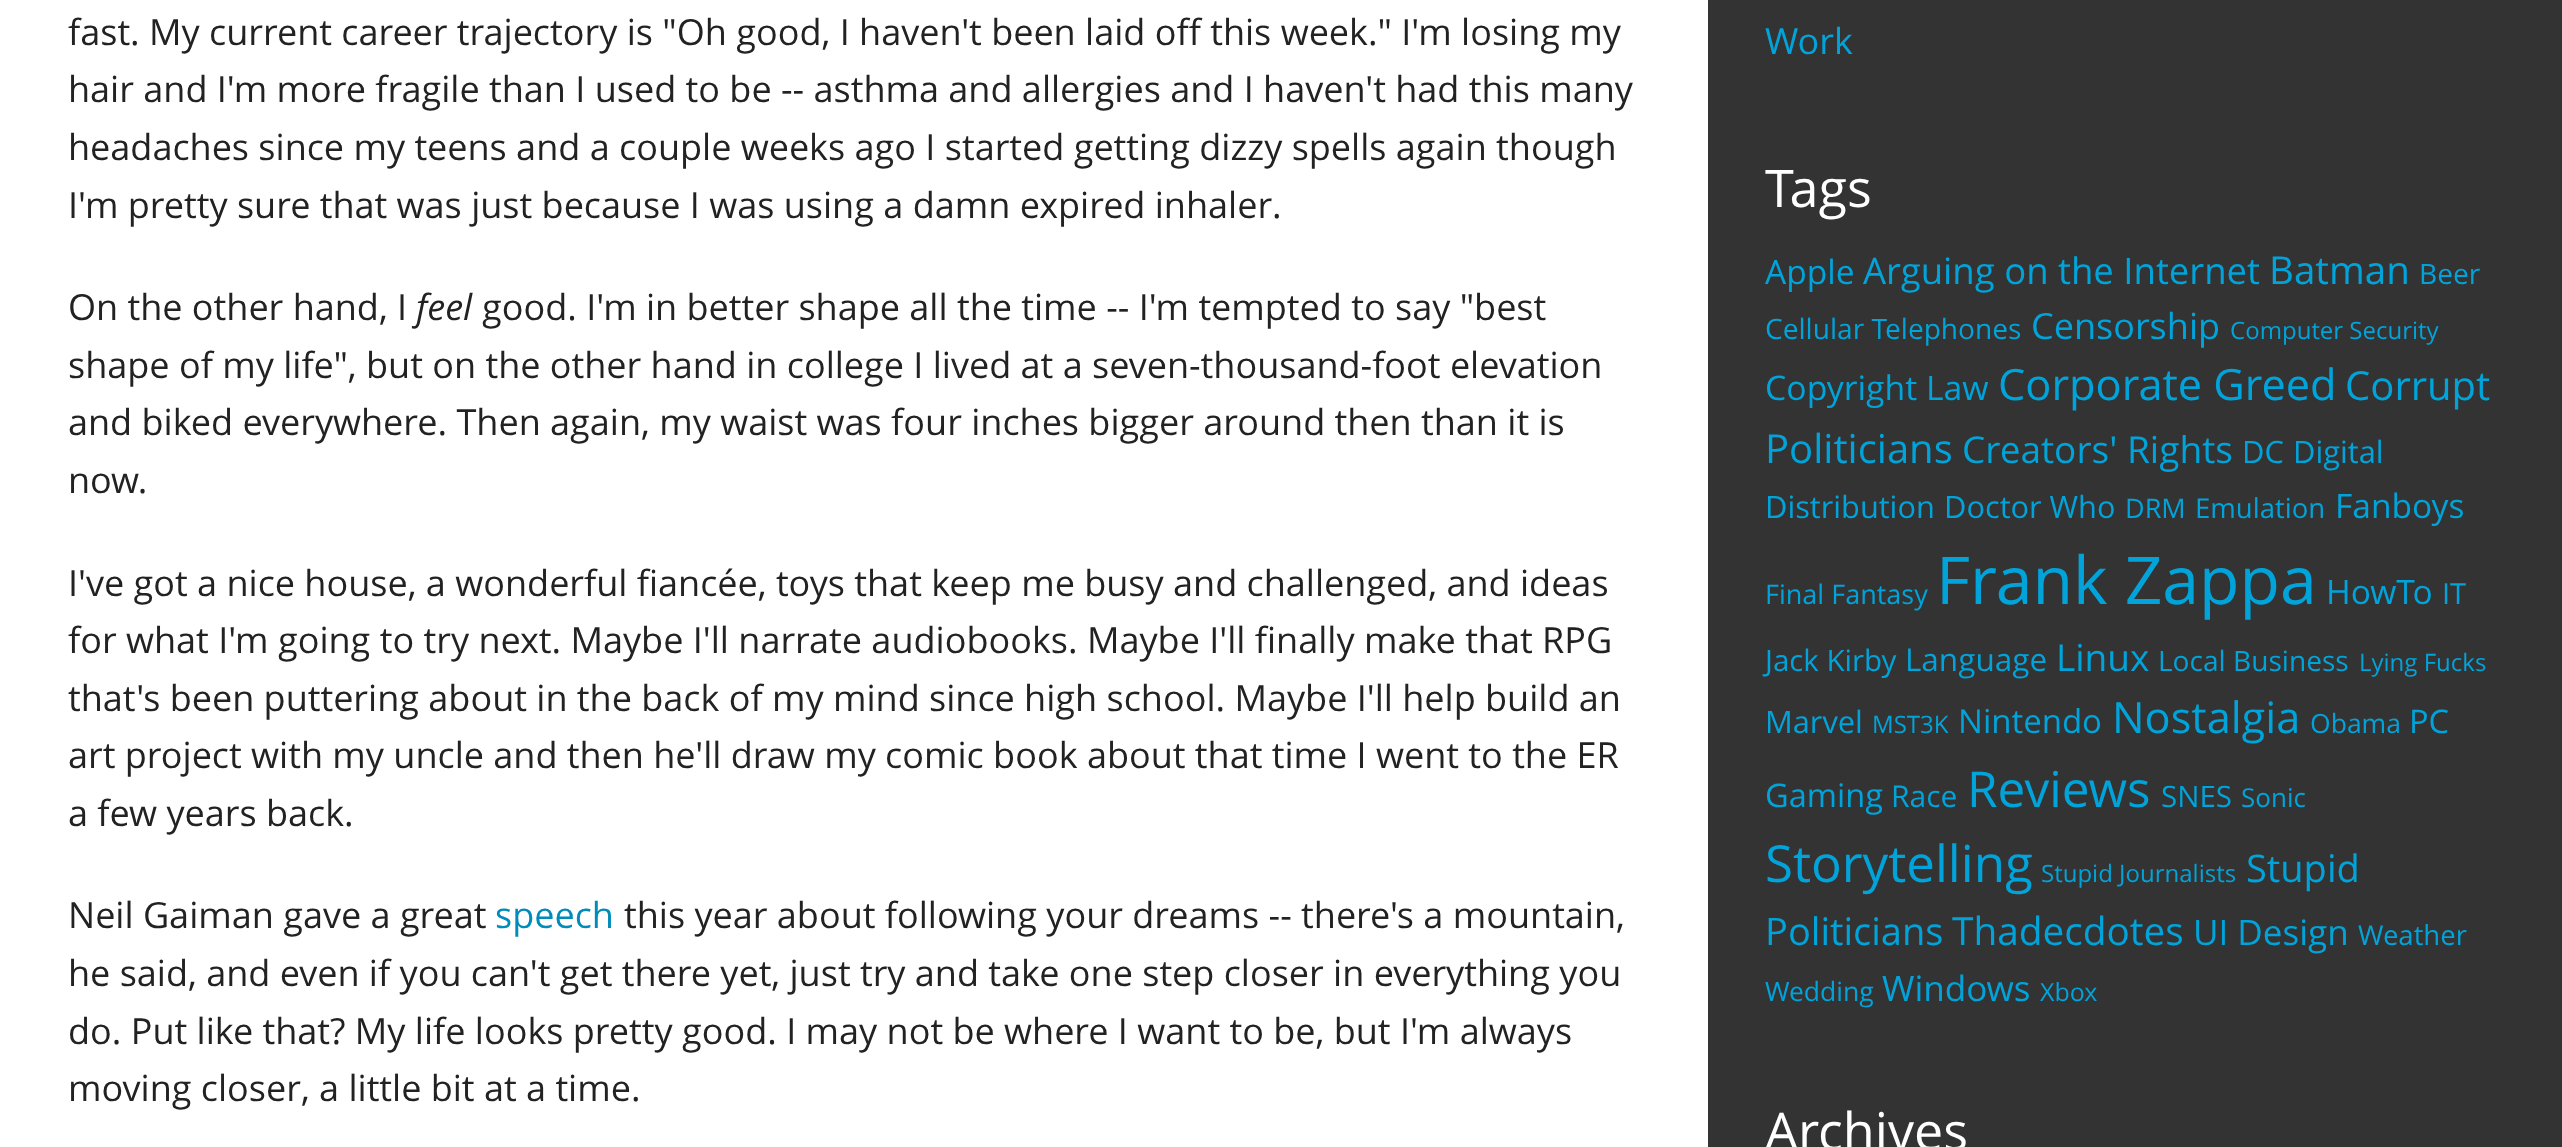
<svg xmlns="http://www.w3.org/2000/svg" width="2562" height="1147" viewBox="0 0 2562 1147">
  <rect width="100%" height="100%" fill="#333333"/>
  <rect x="0" y="0" width="1708" height="1147" fill="#ffffff"/>
  <text x="68" y="45" font-family="Open Sans" font-size="36" fill="#222222">fast. My current career trajectory is "Oh good, I haven't been laid off this week." I'm losing my</text>
  <text x="68" y="102" font-family="Open Sans" font-size="36" fill="#222222">hair and I'm more fragile than I used to be -- asthma and allergies and I haven't had this many</text>
  <text x="68" y="160" font-family="Open Sans" font-size="36" fill="#222222">headaches since my teens and a couple weeks ago I started getting dizzy spells again though</text>
  <text x="68" y="218" font-family="Open Sans" font-size="36" fill="#222222">I'm pretty sure that was just because I was using a damn expired inhaler.</text>
  <text x="68" y="320" font-family="Open Sans" font-size="36" fill="#222222">On the other hand, I</text>
  <text x="416" y="320" font-family="Open Sans" font-size="36" font-style="italic" fill="#222222">feel</text>
  <text x="482" y="320" font-family="Open Sans" font-size="36" fill="#222222">good. I'm in better shape all the time -- I'm tempted to say "best</text>
  <text x="68" y="378" font-family="Open Sans" font-size="36" fill="#222222">shape of my life", but on the other hand in college I lived at a seven-thousand-foot elevation</text>
  <text x="68" y="435" font-family="Open Sans" font-size="36" fill="#222222">and biked everywhere. Then again, my waist was four inches bigger around then than it is</text>
  <text x="68" y="493" font-family="Open Sans" font-size="36" fill="#222222">now.</text>
  <text x="68" y="596" font-family="Open Sans" font-size="36" fill="#222222">I've got a nice house, a wonderful fiancée, toys that keep me busy and challenged, and ideas</text>
  <text x="68" y="653" font-family="Open Sans" font-size="36" fill="#222222">for what I'm going to try next. Maybe I'll narrate audiobooks. Maybe I'll finally make that RPG</text>
  <text x="68" y="711" font-family="Open Sans" font-size="36" fill="#222222">that's been puttering about in the back of my mind since high school. Maybe I'll help build an</text>
  <text x="68" y="768" font-family="Open Sans" font-size="36" fill="#222222">art project with my uncle and then he'll draw my comic book about that time I went to the ER</text>
  <text x="68" y="826" font-family="Open Sans" font-size="36" fill="#222222">a few years back.</text>
  <text x="68" y="928" font-family="Open Sans" font-size="36" fill="#222222">Neil Gaiman gave a great</text>
  <text x="495" y="928" font-family="Open Sans" font-size="36" fill="#008cba">speech</text>
  <text x="624" y="928" font-family="Open Sans" font-size="36" fill="#222222">this year about following your dreams -- there's a mountain,</text>
  <text x="68" y="986" font-family="Open Sans" font-size="36" fill="#222222">he said, and even if you can't get there yet, just try and take one step closer in everything you</text>
  <text x="68" y="1044" font-family="Open Sans" font-size="36" fill="#222222">do. Put like that? My life looks pretty good. I may not be where I want to be, but I'm always</text>
  <text x="68" y="1101" font-family="Open Sans" font-size="36" fill="#222222">moving closer, a little bit at a time.</text>
  <text x="1765" y="54" font-family="Open Sans" font-size="36" fill="#00a4da">Work</text>
  <text x="1765" y="207" font-family="Open Sans" font-size="52" fill="#ffffff">Tags</text>
  <text x="1765" y="284" font-family="Open Sans" font-size="33.5" fill="#00a4da">Apple</text>
  <text x="1863" y="284" font-family="Open Sans" font-size="36.5" fill="#00a4da">Arguing on the Internet</text>
  <text x="2269" y="284" font-family="Open Sans" font-size="38.5" fill="#00a4da">Batman</text>
  <text x="2419" y="284" font-family="Open Sans" font-size="28.1" fill="#00a4da">Beer</text>
  <text x="1765" y="339" font-family="Open Sans" font-size="28.1" fill="#00a4da">Cellular Telephones</text>
  <text x="2031" y="339" font-family="Open Sans" font-size="36" fill="#00a4da">Censorship</text>
  <text x="2230" y="339" font-family="Open Sans" font-size="24" fill="#00a4da">Computer Security</text>
  <text x="1765" y="400" font-family="Open Sans" font-size="33.75" fill="#00a4da">Copyright Law</text>
  <text x="1998" y="400" font-family="Open Sans" font-size="43.25" fill="#00a4da">Corporate Greed</text>
  <text x="2345" y="400" font-family="Open Sans" font-size="40" fill="#00a4da">Corrupt</text>
  <text x="1765" y="463" font-family="Open Sans" font-size="40" fill="#00a4da">Politicians</text>
  <text x="1962" y="463" font-family="Open Sans" font-size="37" fill="#00a4da">Creators' Rights</text>
  <text x="2242" y="463" font-family="Open Sans" font-size="30.75" fill="#00a4da">DC</text>
  <text x="2293" y="463" font-family="Open Sans" font-size="30.75" fill="#00a4da">Digital</text>
  <text x="1765" y="518" font-family="Open Sans" font-size="30.75" fill="#00a4da">Distribution</text>
  <text x="1944" y="518" font-family="Open Sans" font-size="30.75" fill="#00a4da">Doctor Who</text>
  <text x="2125" y="518" font-family="Open Sans" font-size="27" fill="#00a4da">DRM</text>
  <text x="2195" y="518" font-family="Open Sans" font-size="27.5" fill="#00a4da">Emulation</text>
  <text x="2335" y="518" font-family="Open Sans" font-size="33.5" fill="#00a4da">Fanboys</text>
  <text x="1765" y="604" font-family="Open Sans" font-size="27" fill="#00a4da">Final Fantasy</text>
  <text x="1936" y="604" font-family="Open Sans" font-size="66" fill="#00a4da">Frank Zappa</text>
  <text x="2326" y="604" font-family="Open Sans" font-size="33.5" fill="#00a4da">HowTo</text>
  <text x="2442" y="604" font-family="Open Sans" font-size="29" fill="#00a4da">IT</text>
  <text x="1765" y="671" font-family="Open Sans" font-size="29.5" fill="#00a4da">Jack Kirby</text>
  <text x="1905" y="671" font-family="Open Sans" font-size="31.5" fill="#00a4da">Language</text>
  <text x="2056" y="671" font-family="Open Sans" font-size="37" fill="#00a4da">Linux</text>
  <text x="2158" y="671" font-family="Open Sans" font-size="28.1" fill="#00a4da">Local Business</text>
  <text x="2359" y="671" font-family="Open Sans" font-size="24" fill="#00a4da">Lying Fucks</text>
  <text x="1765" y="733" font-family="Open Sans" font-size="30.75" fill="#00a4da">Marvel</text>
  <text x="1872" y="733" font-family="Open Sans" font-size="24" fill="#00a4da">MST3K</text>
  <text x="1958" y="733" font-family="Open Sans" font-size="33" fill="#00a4da">Nintendo</text>
  <text x="2112" y="733" font-family="Open Sans" font-size="43.25" fill="#00a4da">Nostalgia</text>
  <text x="2310" y="733" font-family="Open Sans" font-size="26.5" fill="#00a4da">Obama</text>
  <text x="2409" y="733" font-family="Open Sans" font-size="32.5" fill="#00a4da">PC</text>
  <text x="1765" y="807" font-family="Open Sans" font-size="32.5" fill="#00a4da">Gaming</text>
  <text x="1891" y="807" font-family="Open Sans" font-size="30" fill="#00a4da">Race</text>
  <text x="1967" y="807" font-family="Open Sans" font-size="49.5" fill="#00a4da">Reviews</text>
  <text x="2161" y="807" font-family="Open Sans" font-size="29.5" fill="#00a4da">SNES</text>
  <text x="2241" y="807" font-family="Open Sans" font-size="26" fill="#00a4da">Sonic</text>
  <text x="1765" y="882" font-family="Open Sans" font-size="51" fill="#00a4da">Storytelling</text>
  <text x="2041" y="882" font-family="Open Sans" font-size="24" fill="#00a4da">Stupid Journalists</text>
  <text x="2246" y="882" font-family="Open Sans" font-size="38" fill="#00a4da">Stupid</text>
  <text x="1765" y="945" font-family="Open Sans" font-size="38" fill="#00a4da">Politicians</text>
  <text x="1952" y="945" font-family="Open Sans" font-size="38.75" fill="#00a4da">Thadecdotes</text>
  <text x="2193" y="945" font-family="Open Sans" font-size="35" fill="#00a4da">UI Design</text>
  <text x="2358" y="945" font-family="Open Sans" font-size="27.5" fill="#00a4da">Weather</text>
  <text x="1765" y="1001" font-family="Open Sans" font-size="26.5" fill="#00a4da">Wedding</text>
  <text x="1882" y="1001" font-family="Open Sans" font-size="35" fill="#00a4da">Windows</text>
  <text x="2040" y="1001" font-family="Open Sans" font-size="25" fill="#00a4da">Xbox</text>
  <text x="1765" y="1150" font-family="Open Sans" font-size="52" fill="#ffffff">Archives</text>
</svg>
